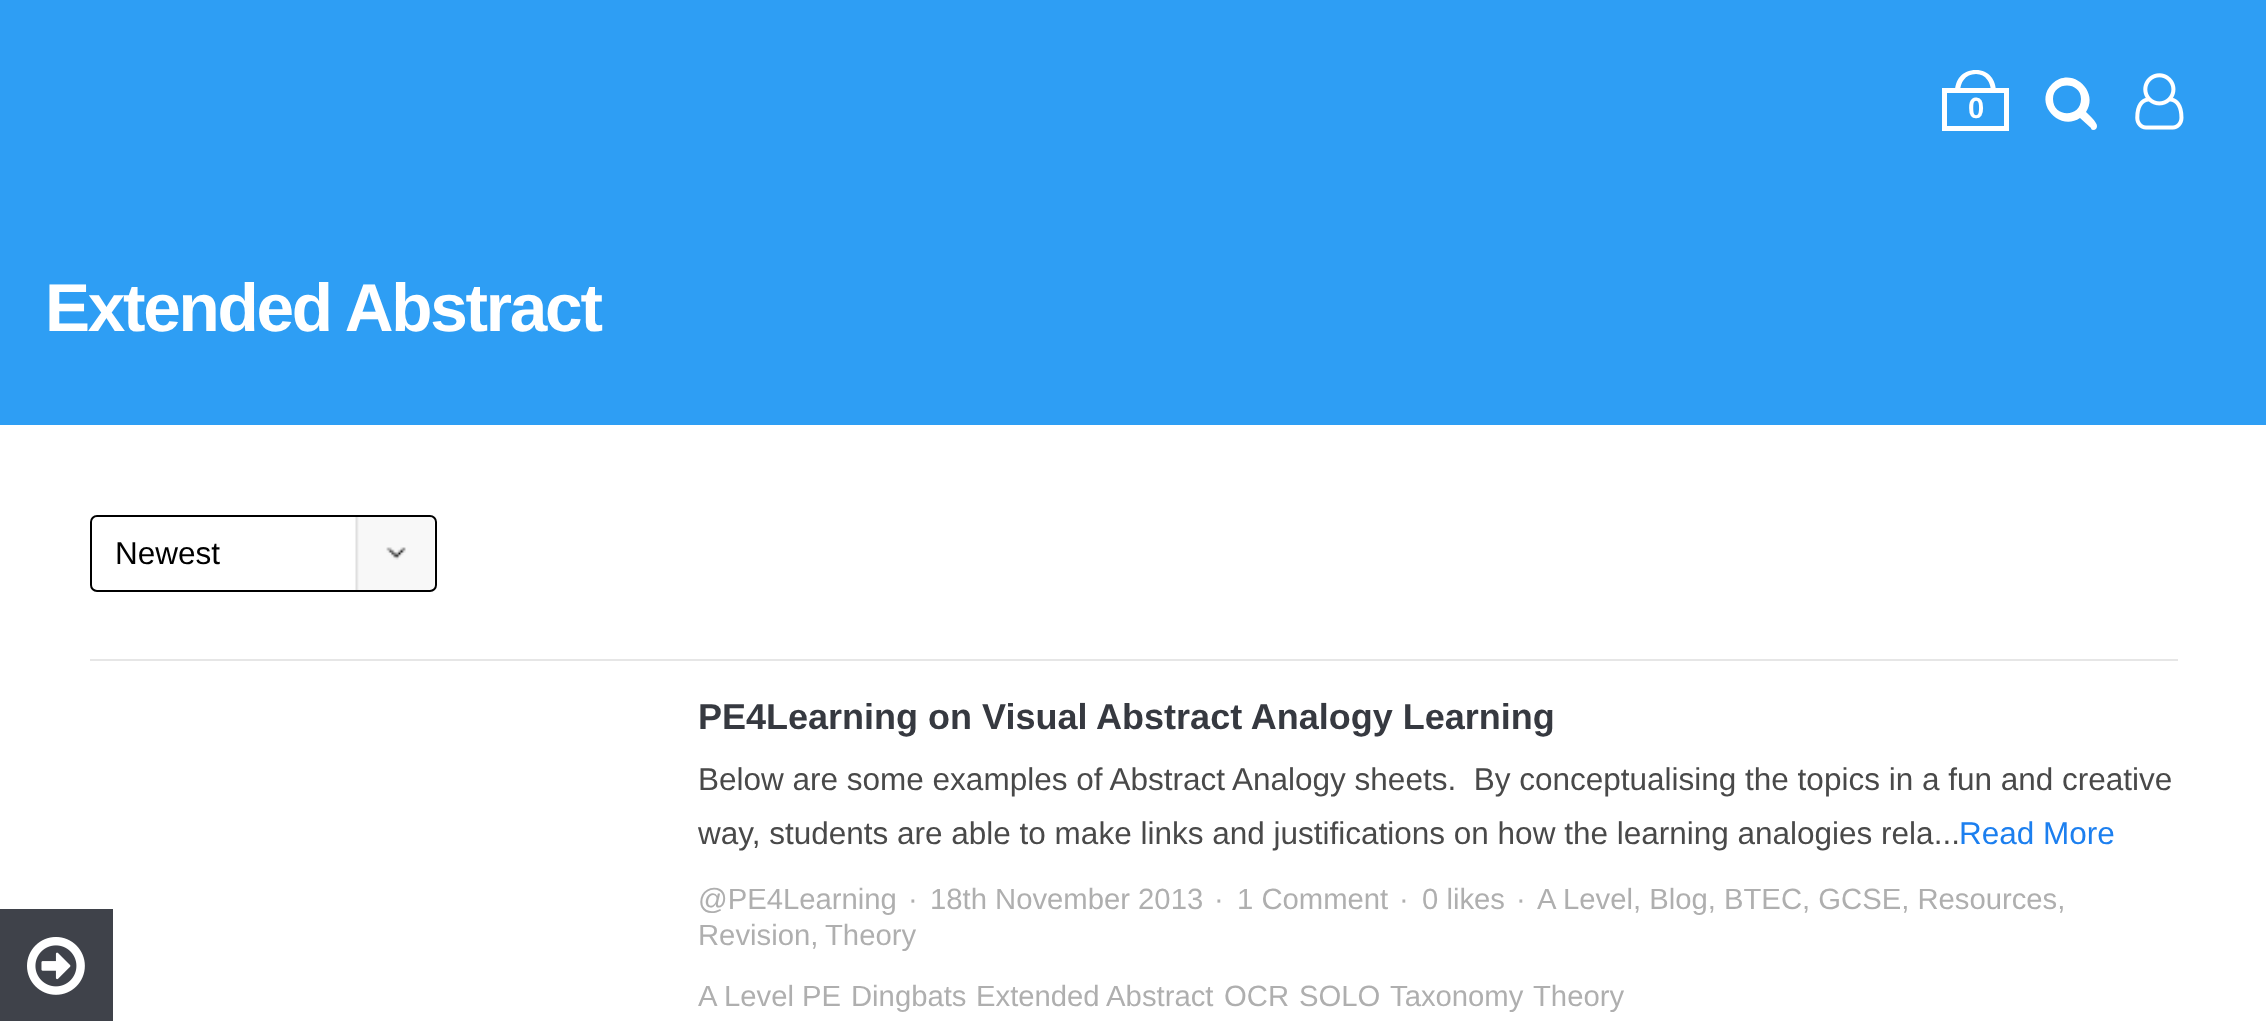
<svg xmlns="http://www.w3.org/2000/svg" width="2266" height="1021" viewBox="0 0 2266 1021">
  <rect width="100%" height="100%" fill="#ffffff"/>
  <rect x="0" y="0" width="2266" height="425" fill="#2e9ef4"/>
  <rect x="1944.5" y="90.5" width="62" height="38" fill="none" stroke="#ffffff" stroke-width="5"/>
  <path d="M1976 70C1989 70 1996 80 1996 92H1955C1955 80 1962 70 1976 70ZM1976 74C1986 74 1991 83 1991 92H1960C1960 83 1965 74 1976 74Z" fill="#ffffff" fill-rule="evenodd"/>
  <text x="1968" y="118" font-family="Liberation Sans" font-size="29.25" font-weight="bold" fill="#ffffff">0</text>
  <path d="M2081 99C2081 118 2053 118 2053 99C2053 81 2081 81 2081 99ZM2097 126C2097 122 2088 114 2086 112C2100 91 2071 65 2052 84C2033 103 2059 132 2080 118L2091 128C2091 129 2092 130 2093 130C2096 130 2097 128 2097 126Z" fill="#ffffff"/>
  <image x="2135" y="73" width="49" height="57" href="img1.png"/>
  <text x="45" y="331" font-family="Liberation Sans" font-size="67.5" font-weight="bold" letter-spacing="-2.25" fill="#ffffff">Extended Abstract</text>
  <rect x="90" y="659" width="2088" height="2" fill="#e6e6e6"/>
  <image x="355" y="515" width="79" height="77" href="img2.png"/>
  <rect x="91" y="516" width="345" height="75" rx="6" fill="none" stroke="#000000" stroke-width="2"/>
  <text x="115" y="564" font-family="Liberation Sans" font-size="31.5" fill="#000000">Newest</text>
  <text x="698" y="729" font-family="Liberation Sans" font-size="36" font-weight="bold" fill="#363940">PE4Learning on Visual Abstract Analogy Learning</text>
  <text x="698" y="790" font-family="Liberation Sans" font-size="31.5" fill="#494949" xml:space="preserve">Below are some examples of Abstract Analogy sheets.  By conceptualising the topics in a fun and creative</text>
  <text x="698" y="844" font-family="Liberation Sans" font-size="31.5" fill="#494949">way, students are able to make links and justifications on how the learning analogies rela...</text>
  <text x="1959" y="844" font-family="Liberation Sans" font-size="31.5" fill="#1c7fef">Read More</text>
  <text x="698" y="909" font-family="Liberation Sans" font-size="29.25" fill="#afafaf">@PE4Learning</text>
  <text x="908" y="909" font-family="Liberation Sans" font-size="29.25" fill="#afafaf">·</text>
  <text x="930" y="909" font-family="Liberation Sans" font-size="29.25" fill="#afafaf">18th November 2013</text>
  <text x="1214" y="909" font-family="Liberation Sans" font-size="29.25" fill="#afafaf">·</text>
  <text x="1237" y="909" font-family="Liberation Sans" font-size="29.25" fill="#afafaf">1 Comment</text>
  <text x="1399" y="909" font-family="Liberation Sans" font-size="29.25" fill="#afafaf">·</text>
  <text x="1422" y="909" font-family="Liberation Sans" font-size="29.25" fill="#afafaf">0 likes</text>
  <text x="1516" y="909" font-family="Liberation Sans" font-size="29.25" fill="#afafaf">·</text>
  <text x="1537" y="909" font-family="Liberation Sans" font-size="29.25" fill="#afafaf">A Level, Blog, BTEC, GCSE, Resources,</text>
  <text x="698" y="945" font-family="Liberation Sans" font-size="29.25" fill="#afafaf">Revision,</text>
  <text x="825" y="945" font-family="Liberation Sans" font-size="29.25" fill="#afafaf">Theory</text>
  <text x="698" y="1006" font-family="Liberation Sans" font-size="29.25" fill="#afafaf">A Level PE</text>
  <text x="851" y="1006" font-family="Liberation Sans" font-size="29.25" fill="#afafaf">Dingbats</text>
  <text x="976" y="1006" font-family="Liberation Sans" font-size="29.25" fill="#afafaf">Extended Abstract</text>
  <text x="1224" y="1006" font-family="Liberation Sans" font-size="29.25" fill="#afafaf">OCR</text>
  <text x="1299" y="1006" font-family="Liberation Sans" font-size="29.25" fill="#afafaf">SOLO</text>
  <text x="1390" y="1006" font-family="Liberation Sans" font-size="29.25" fill="#afafaf">Taxonomy</text>
  <text x="1533" y="1006" font-family="Liberation Sans" font-size="29.25" fill="#afafaf">Theory</text>
  <rect x="0" y="909" width="113" height="112" fill="#3f424a"/>
  <image x="27" y="937" width="58" height="58" href="img3.png"/>
</svg>
